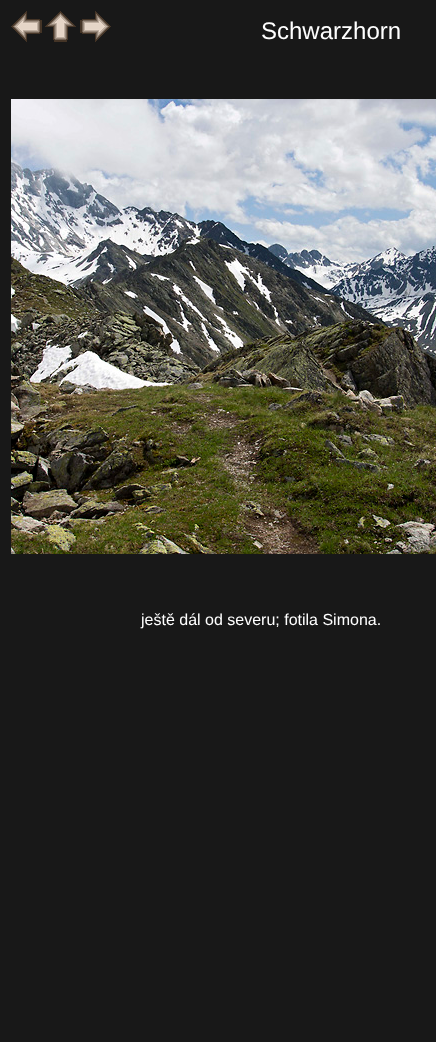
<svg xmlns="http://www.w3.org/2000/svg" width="436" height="1042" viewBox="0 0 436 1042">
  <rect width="100%" height="100%" fill="#181818"/>
  <image x="11" y="11" width="31" height="31" href="img1.png"/>
  <image x="45" y="11" width="31" height="31" href="img2.png"/>
  <image x="80" y="11" width="31" height="31" href="img3.png"/>
  <text x="261" y="39" font-family="Liberation Sans" font-size="24" fill="#ffffff">Schwarzhorn</text>
  <image x="11" y="99" width="425" height="455" href="img4.png"/>
  <text x="141" y="625" font-family="Liberation Sans" font-size="16" fill="#ffffff">ještě dál od severu; fotila Simona.</text>
</svg>
